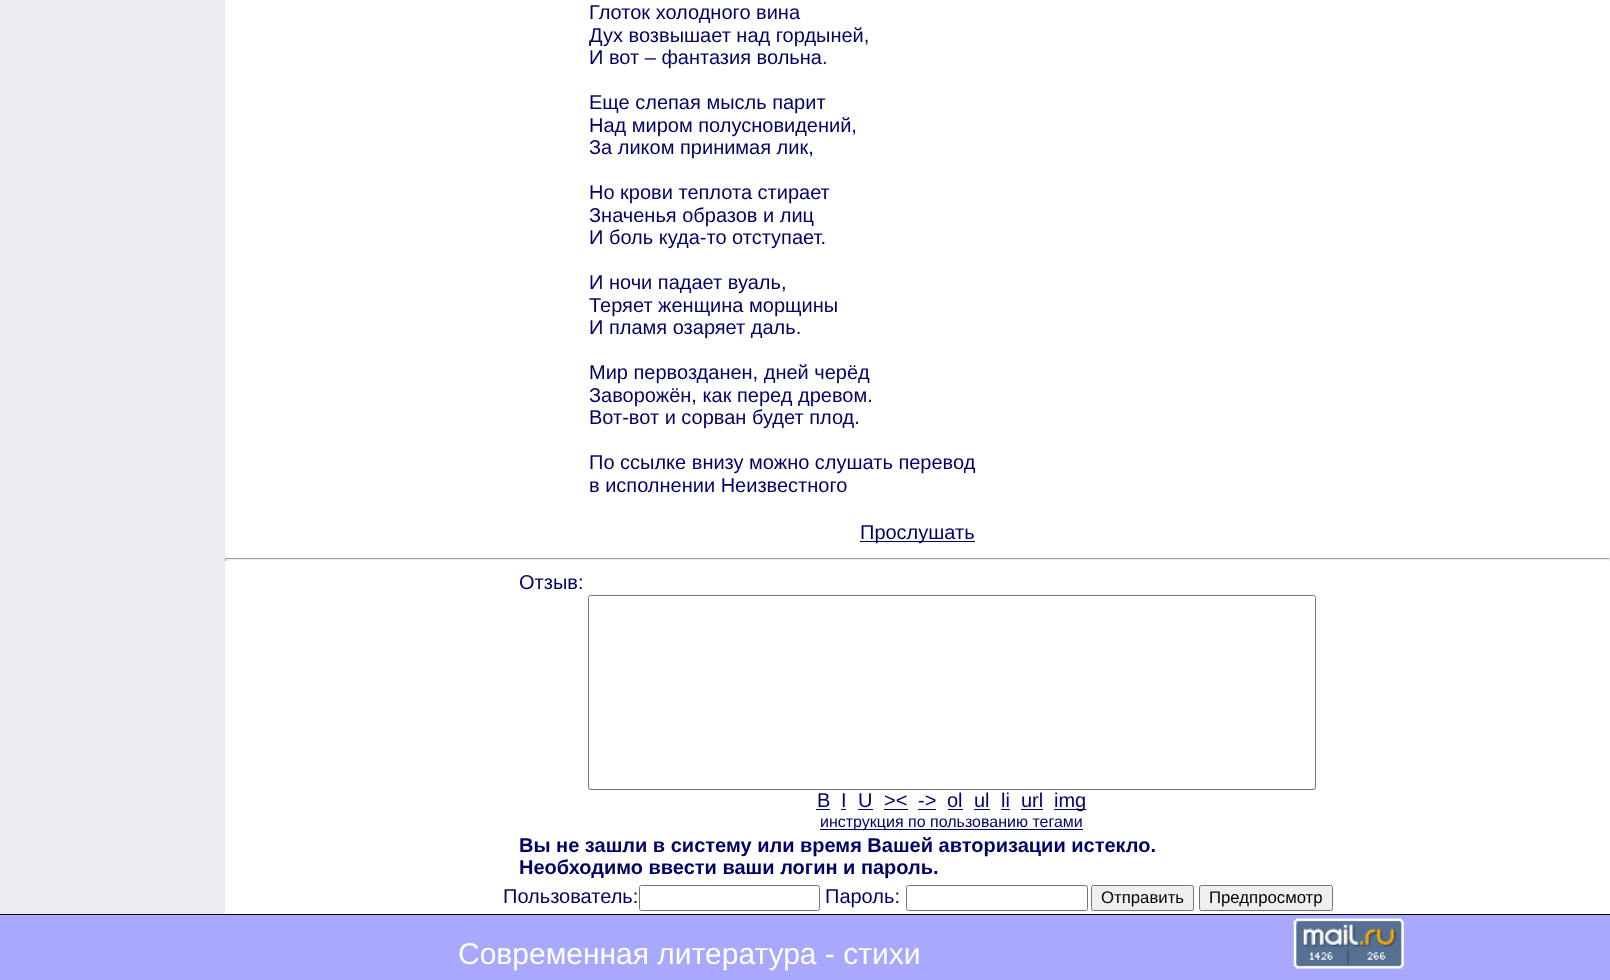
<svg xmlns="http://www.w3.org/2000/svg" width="1610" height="980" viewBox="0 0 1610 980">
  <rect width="100%" height="100%" fill="#ffffff"/>
  <rect x="0" y="0" width="225" height="914" fill="#ebecf1"/>
  <text x="589" y="19" font-family="Liberation Sans" font-size="20" fill="#000066">Глоток холодного вина</text>
  <text x="589" y="42" font-family="Liberation Sans" font-size="20" fill="#000066">Дух возвышает над гордыней,</text>
  <text x="589" y="64" font-family="Liberation Sans" font-size="20" fill="#000066">И вот – фантазия вольна.</text>
  <text x="589" y="109" font-family="Liberation Sans" font-size="20" fill="#000066">Еще слепая мысль парит</text>
  <text x="589" y="132" font-family="Liberation Sans" font-size="20" fill="#000066">Над миром полусновидений,</text>
  <text x="589" y="154" font-family="Liberation Sans" font-size="20" fill="#000066">За ликом принимая лик,</text>
  <text x="589" y="199" font-family="Liberation Sans" font-size="20" fill="#000066">Но крови теплота стирает</text>
  <text x="589" y="222" font-family="Liberation Sans" font-size="20" fill="#000066">Значенья образов и лиц</text>
  <text x="589" y="244" font-family="Liberation Sans" font-size="20" fill="#000066">И боль куда-то отступает.</text>
  <text x="589" y="289" font-family="Liberation Sans" font-size="20" fill="#000066">И ночи падает вуаль,</text>
  <text x="589" y="312" font-family="Liberation Sans" font-size="20" fill="#000066">Теряет женщина морщины</text>
  <text x="589" y="334" font-family="Liberation Sans" font-size="20" fill="#000066">И пламя озаряет даль.</text>
  <text x="589" y="379" font-family="Liberation Sans" font-size="20" fill="#000066">Мир первозданен, дней черёд</text>
  <text x="589" y="402" font-family="Liberation Sans" font-size="20" fill="#000066">Заворожён, как перед древом.</text>
  <text x="589" y="424" font-family="Liberation Sans" font-size="20" fill="#000066">Вот-вот и сорван будет плод.</text>
  <text x="589" y="469" font-family="Liberation Sans" font-size="20" fill="#000066">По ссылке внизу можно слушать перевод</text>
  <text x="589" y="492" font-family="Liberation Sans" font-size="20" fill="#000066">в исполнении Неизвестного</text>
  <rect x="860" y="541" width="115" height="1" fill="#000066"/>
  <text x="860" y="539" font-family="Liberation Sans" font-size="20" fill="#000066">Прослушать</text>
  <rect x="225" y="558" width="1385" height="1" fill="#9f9f9f"/>
  <rect x="1609" y="558" width="1" height="3" fill="#eeeeee"/>
  <rect x="225" y="559" width="1385" height="1" fill="#eeeeee"/>
  <rect x="225" y="558" width="1" height="3" fill="#9f9f9f"/>
  <text x="519" y="589" font-family="Liberation Sans" font-size="20" fill="#000066">Отзыв:</text>
  <rect x="588.5" y="595.5" width="727" height="194" rx="2" fill="none" stroke="#767676"/>
  <text x="817" y="807" font-family="Liberation Sans" font-size="20" fill="#000066">B</text>
  <rect x="816" y="809" width="14" height="1" fill="#000066"/>
  <text x="841" y="807" font-family="Liberation Sans" font-size="20" fill="#000066">I</text>
  <rect x="841" y="809" width="5" height="1" fill="#000066"/>
  <text x="858" y="807" font-family="Liberation Sans" font-size="20" fill="#000066">U</text>
  <rect x="858" y="809" width="15" height="1" fill="#000066"/>
  <text x="884" y="807" font-family="Liberation Sans" font-size="20" fill="#000066">&gt;&lt;</text>
  <rect x="884" y="809" width="24" height="1" fill="#000066"/>
  <text x="918" y="807" font-family="Liberation Sans" font-size="20" fill="#000066">-&gt;</text>
  <rect x="918" y="809" width="18" height="1" fill="#000066"/>
  <text x="947" y="807" font-family="Liberation Sans" font-size="20" fill="#000066">ol</text>
  <rect x="948" y="809" width="15" height="1" fill="#000066"/>
  <text x="974" y="807" font-family="Liberation Sans" font-size="20" fill="#000066">ul</text>
  <rect x="974" y="809" width="16" height="1" fill="#000066"/>
  <text x="1001" y="807" font-family="Liberation Sans" font-size="20" fill="#000066">li</text>
  <rect x="1001" y="809" width="9" height="1" fill="#000066"/>
  <text x="1021" y="807" font-family="Liberation Sans" font-size="20" fill="#000066">url</text>
  <rect x="1021" y="809" width="22" height="1" fill="#000066"/>
  <rect x="1054" y="809" width="32" height="1" fill="#000066"/>
  <text x="1054" y="807" font-family="Liberation Sans" font-size="20" fill="#000066">img</text>
  <rect x="820" y="829" width="263" height="1" fill="#000066"/>
  <text x="820" y="827" font-family="Liberation Sans" font-size="16" fill="#000066">инструкция по пользованию тегами</text>
  <text x="519" y="852" font-family="Liberation Sans" font-size="20" font-weight="bold" fill="#000066">Вы не зашли в систему или время Вашей авторизации истекло.</text>
  <text x="519" y="874" font-family="Liberation Sans" font-size="20" font-weight="bold" fill="#000066">Необходимо ввести ваши логин и пароль.</text>
  <text x="503" y="903" font-family="Liberation Sans" font-size="20" fill="#000066">Пользователь:</text>
  <rect x="639.5" y="885.5" width="180" height="25" rx="2" fill="none" stroke="#767676"/>
  <text x="825" y="903" font-family="Liberation Sans" font-size="20" fill="#000066">Пароль:</text>
  <rect x="906.5" y="885.5" width="181" height="25" rx="2" fill="none" stroke="#767676"/>
  <rect x="1091.5" y="885.5" width="102" height="25" rx="2" fill="#efefef" stroke="#767676"/>
  <text x="1101" y="903" font-family="Liberation Sans" font-size="16.75" fill="#000000">Отправить</text>
  <rect x="1199.5" y="885.5" width="133" height="25" rx="2" fill="#efefef" stroke="#767676"/>
  <text x="1209" y="903" font-family="Liberation Sans" font-size="16.75" fill="#000000">Предпросмотр</text>
  <rect x="0" y="915" width="1610" height="65" fill="#a8a8ff"/>
  <rect x="0" y="914" width="1610" height="1" fill="#000000"/>
  <text x="458" y="964" font-family="Liberation Sans" font-size="30" fill="#ffffff">Современная литература - стихи</text>
  <image x="1293" y="918" width="111" height="51" href="img1.png"/>
</svg>
